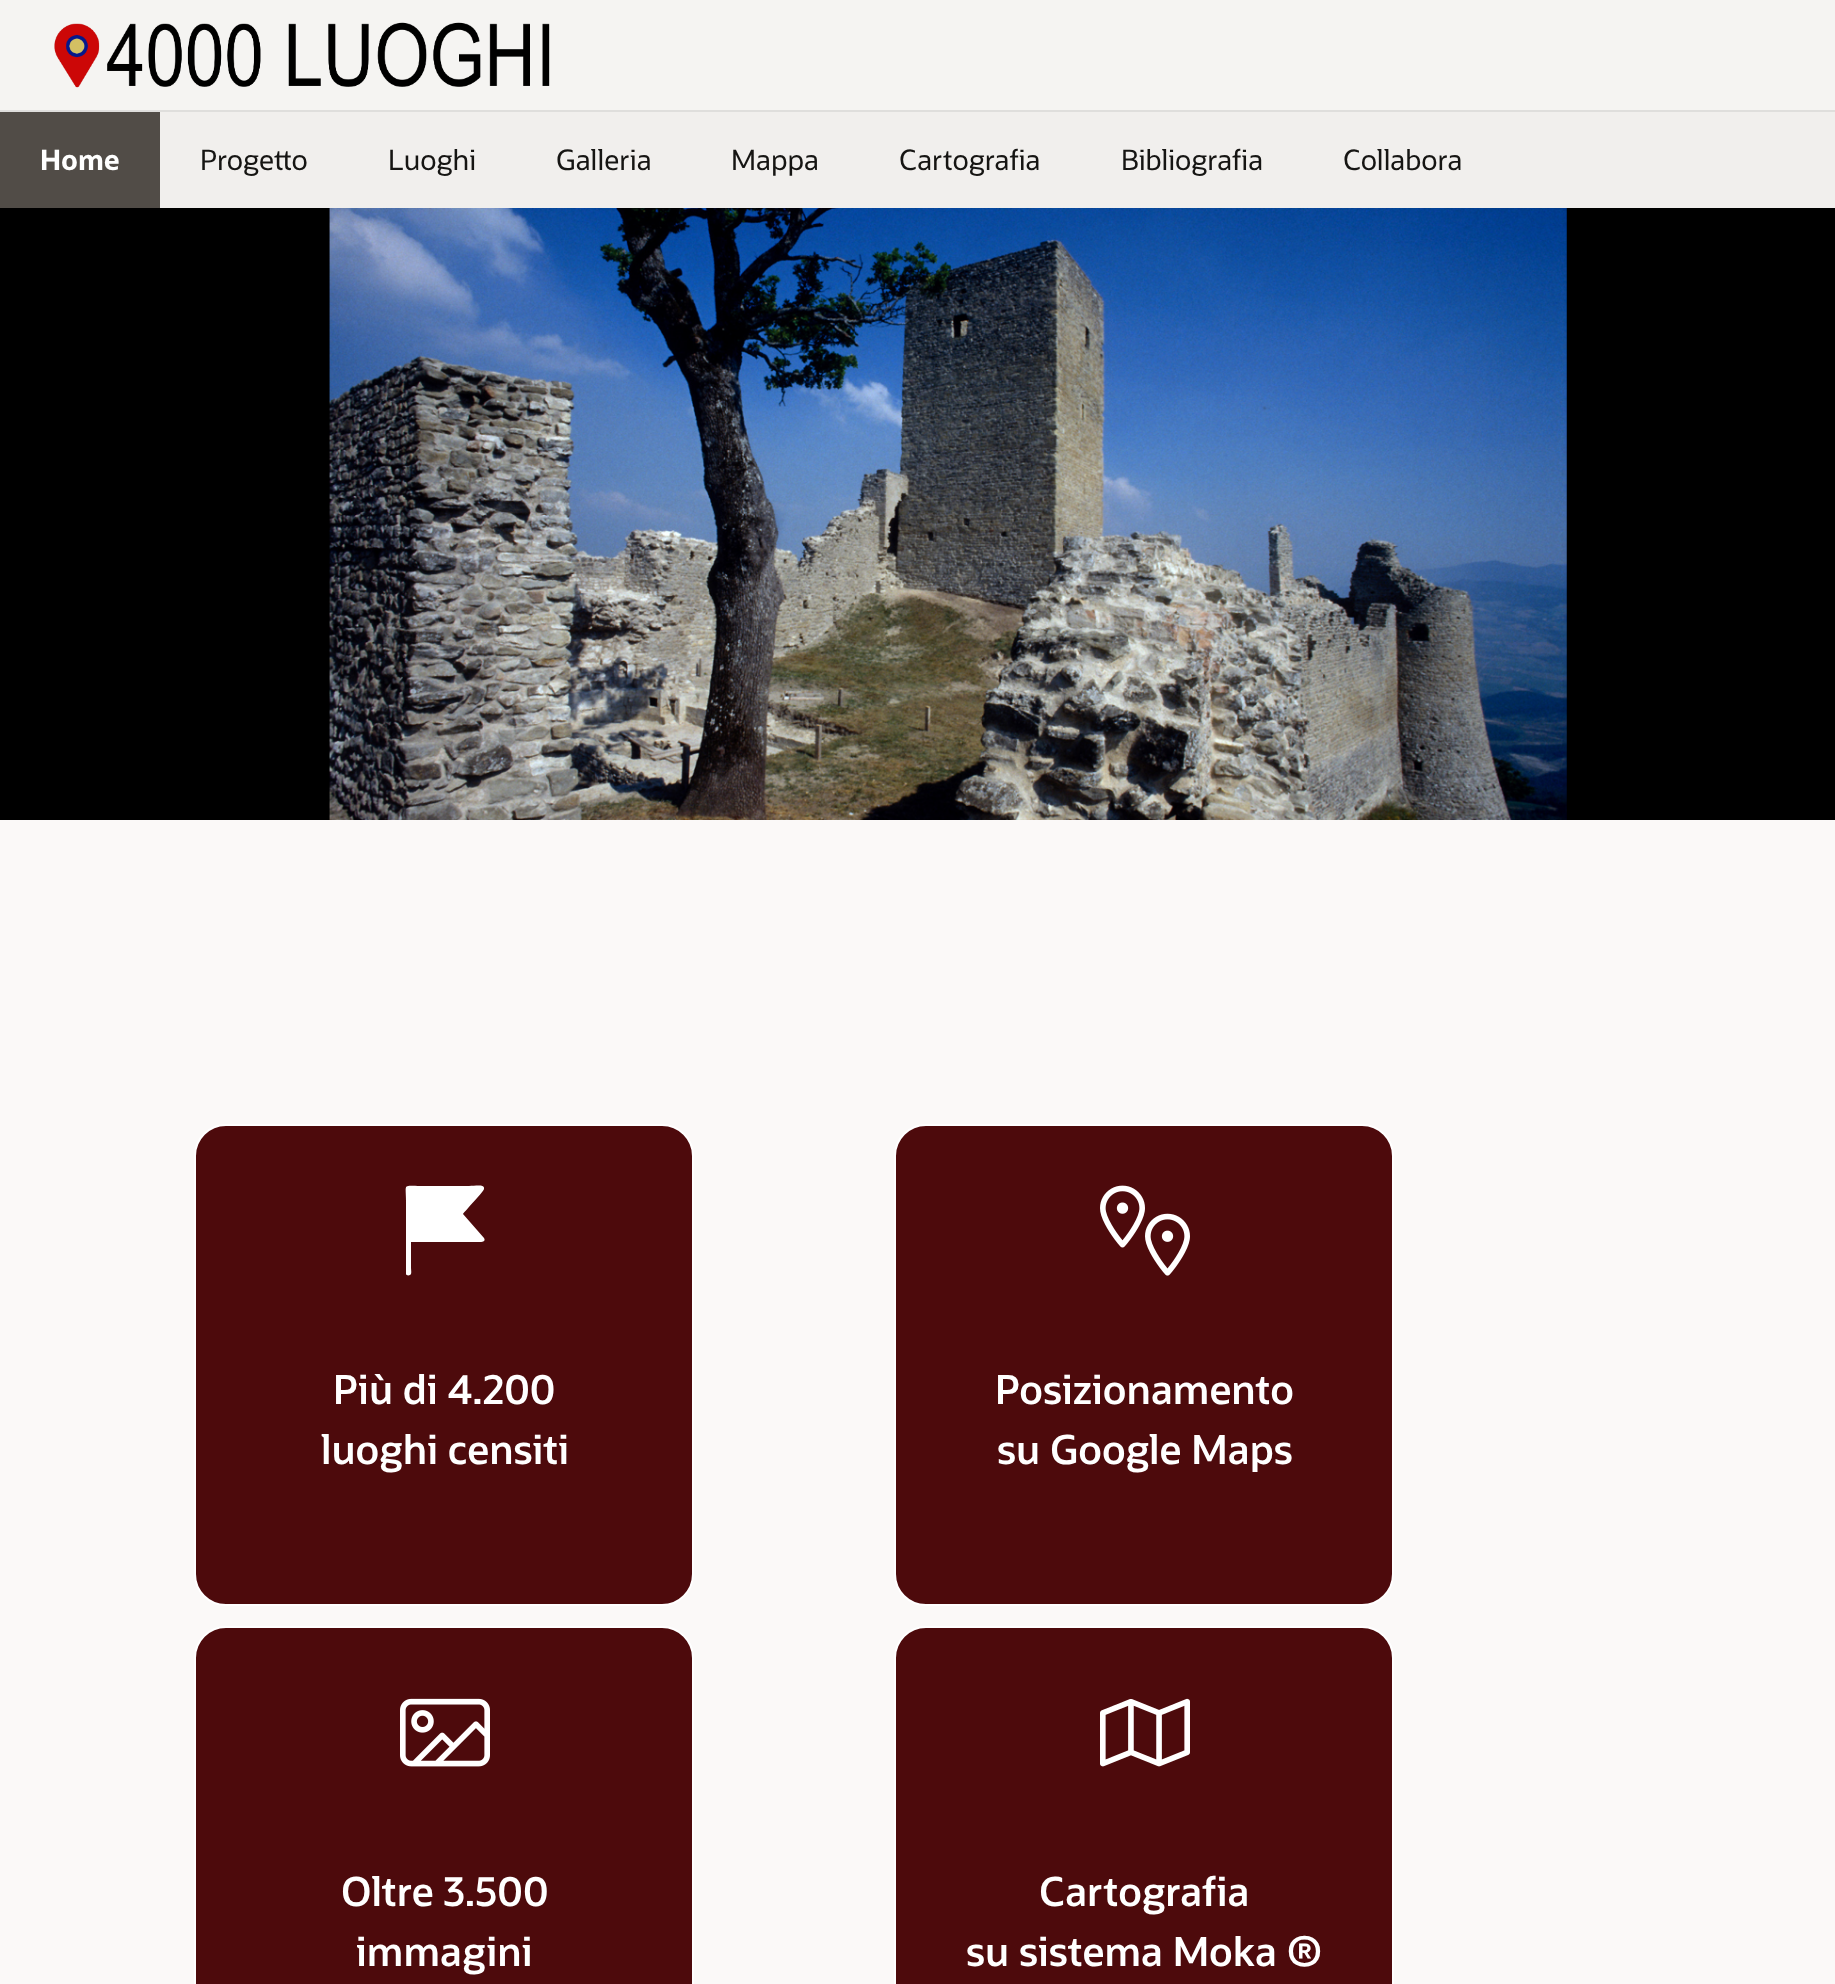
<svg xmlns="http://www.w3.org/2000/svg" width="1835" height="1984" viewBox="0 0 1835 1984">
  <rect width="100%" height="100%" fill="#f5f4f2"/>
  <rect x="0" y="110" width="1835" height="2" fill="#dfdedc"/>
  <image x="54" y="22" width="496" height="66" href="img1.png"/>
  <rect x="160" y="112" width="1675" height="96" fill="#f1efed"/>
  <rect x="0" y="112" width="160" height="96" fill="#514c47"/>
  <text x="40" y="170" font-family="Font" font-size="28" font-weight="bold" fill="#ffffff">Home</text>
  <text x="200" y="170" font-family="Font" font-size="28" fill="#161513">Progetto</text>
  <text x="388" y="170" font-family="Font" font-size="28" fill="#161513">Luoghi</text>
  <text x="556" y="170" font-family="Font" font-size="28" fill="#161513">Galleria</text>
  <text x="731" y="170" font-family="Font" font-size="28" fill="#161513">Mappa</text>
  <text x="899" y="170" font-family="Font" font-size="28" fill="#161513">Cartografia</text>
  <text x="1121" y="170" font-family="Font" font-size="28" fill="#161513">Bibliografia</text>
  <text x="1343" y="170" font-family="Font" font-size="28" fill="#161513">Collabora</text>
  <rect x="0" y="820" width="1835" height="1164" fill="#fbf9f8"/>
  <image x="0" y="208" width="1835" height="612" href="img2.png"/>
  <rect x="195" y="1125" width="498" height="480" rx="31" fill="#4d0a0c" stroke="#ffffff" stroke-width="2"/>
  <path d="M463 1214C466 1210 484 1191 484 1189C485 1184 476 1186 469 1186H421C402 1186 406 1183 406 1202V1274C406 1275 408 1276 410 1275C412 1274 411 1270 411 1268V1242H470C478 1242 487 1243 484 1238Z" fill="#ffffff"/>
  <text x="333" y="1404" font-family="Font" font-size="40" font-weight="600" fill="#ffffff">Più di 4.200</text>
  <text x="321" y="1464" font-family="Font" font-size="40" font-weight="600" fill="#ffffff">luoghi censiti</text>
  <rect x="895" y="1125" width="498" height="480" rx="31" fill="#4d0a0c" stroke="#ffffff" stroke-width="2"/>
  <image x="1100" y="1185" width="90" height="91" href="img3.png"/>
  <text x="995" y="1404" font-family="Font" font-size="40" font-weight="600" fill="#ffffff">Posizionamento</text>
  <text x="997" y="1464" font-family="Font" font-size="40" font-weight="600" fill="#ffffff">su Google Maps</text>
  <rect x="195" y="1627" width="498" height="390" rx="31" fill="#4d0a0c" stroke="#ffffff" stroke-width="2"/>
  <image x="400" y="1698" width="90" height="69" href="img4.png"/>
  <text x="341" y="1906" font-family="Font" font-size="40" font-weight="600" fill="#ffffff">Oltre 3.500</text>
  <text x="356" y="1966" font-family="Font" font-size="40" font-weight="600" fill="#ffffff">immagini</text>
  <rect x="895" y="1627" width="498" height="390" rx="31" fill="#4d0a0c" stroke="#ffffff" stroke-width="2"/>
  <image x="1100" y="1698" width="90" height="69" href="img5.png"/>
  <text x="1039" y="1906" font-family="Font" font-size="40" font-weight="600" fill="#ffffff">Cartografia</text>
  <text x="966" y="1966" font-family="Font" font-size="40" font-weight="600" fill="#ffffff">su sistema Moka ®</text>
</svg>
